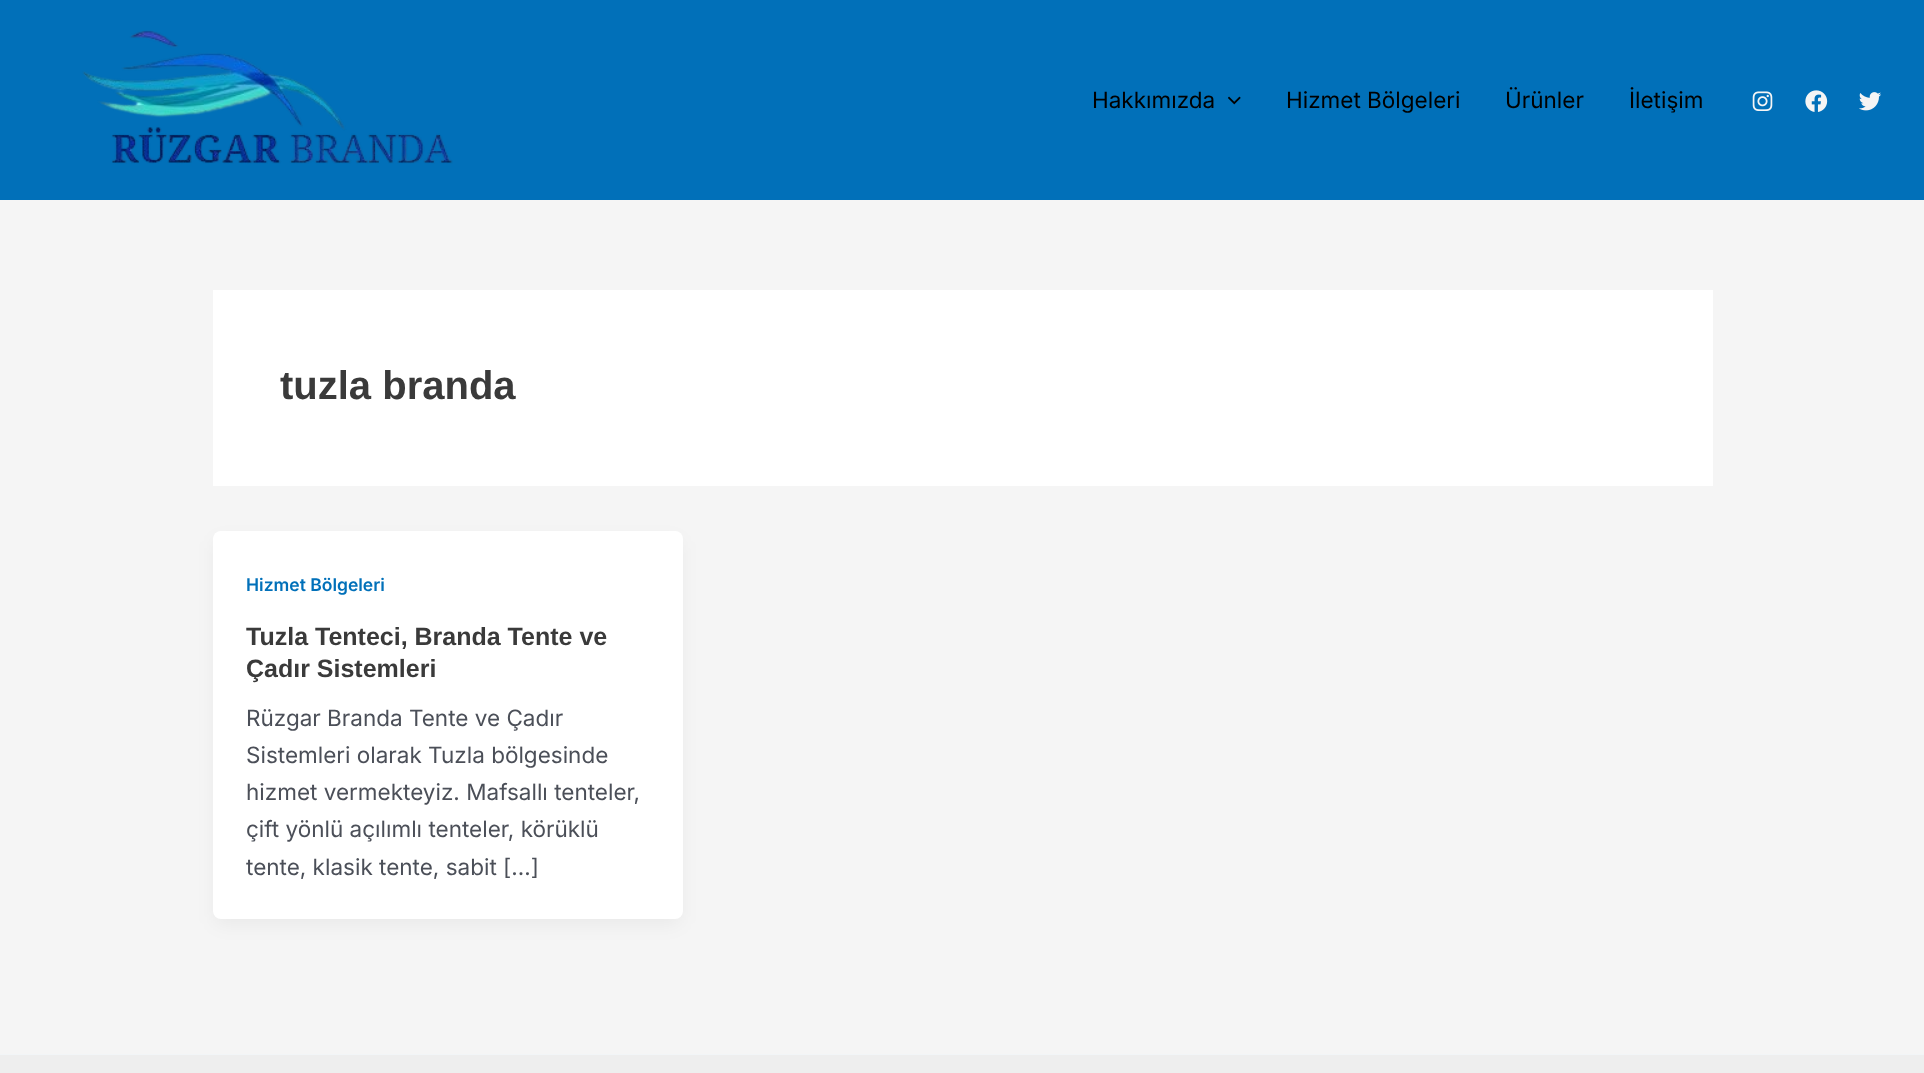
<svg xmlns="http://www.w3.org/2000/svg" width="1924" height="1073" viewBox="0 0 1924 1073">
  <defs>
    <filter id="blur1" x="-50%" y="-200%" width="200%" height="500%"><feGaussianBlur stdDeviation="9.5"/></filter>
  </defs>
  <rect width="100%" height="100%" fill="#f5f5f5"/>
  <rect x="0" y="0" width="1924" height="200" fill="#0170b9"/>
  <image x="82" y="30" width="371" height="134" href="img1.png"/>
  <text x="1092" y="108" font-family="Inter" font-size="22.5" fill="#000000">Hakkımızda</text>
  <image x="1228" y="96" width="13" height="9" href="img2.png"/>
  <text x="1286" y="108" font-family="Inter" font-size="22.5" fill="#000000">Hizmet Bölgeleri</text>
  <text x="1505" y="108" font-family="Inter" font-size="22.5" fill="#000000">Ürünler</text>
  <text x="1629" y="108" font-family="Inter" font-size="22.5" fill="#000000">İletişim</text>
  <image x="1752" y="91" width="21" height="20" href="img3.png"/>
  <image x="1805" y="90" width="23" height="22" href="img4.png"/>
  <image x="1859" y="92" width="22" height="19" href="img5.png"/>
  <rect x="213" y="290" width="1500" height="196" fill="#ffffff"/>
  <text x="280" y="399" font-family="Liberation Sans" font-size="40" font-weight="bold" fill="#3a3a3a">tuzla branda</text>
  <rect x="215" y="541" width="465" height="383" rx="5" fill="#101828" fill-opacity="0.05" filter="url(#blur1)"/>
  <rect x="213" y="531" width="470" height="388" rx="8" fill="#ffffff"/>
  <text x="246" y="591" font-family="Inter" font-size="17.5" font-weight="600" fill="#0170b9">Hizmet Bölgeleri</text>
  <text x="246" y="645" font-family="Liberation Sans" font-size="25" font-weight="bold" fill="#3a3a3a">Tuzla Tenteci, Branda Tente ve</text>
  <text x="246" y="677" font-family="Liberation Sans" font-size="25" font-weight="bold" fill="#3a3a3a">Çadır Sistemleri</text>
  <text x="246" y="726" font-family="Inter" font-size="22.5" fill="#4b4f58">Rüzgar Branda Tente ve Çadır</text>
  <text x="246" y="763" font-family="Inter" font-size="22.5" fill="#4b4f58">Sistemleri olarak Tuzla bölgesinde</text>
  <text x="246" y="800" font-family="Inter" font-size="22.5" fill="#4b4f58">hizmet vermekteyiz. Mafsallı tenteler,</text>
  <text x="246" y="837" font-family="Inter" font-size="22.5" fill="#4b4f58">çift yönlü açılımlı tenteler, körüklü</text>
  <text x="246" y="875" font-family="Inter" font-size="22.5" fill="#4b4f58">tente, klasik tente, sabit […]</text>
  <rect x="0" y="1055" width="1924" height="18" fill="#eeeeee"/>
  <rect x="0" y="1054" width="1924" height="1" fill="#f2f5f7"/>
</svg>
